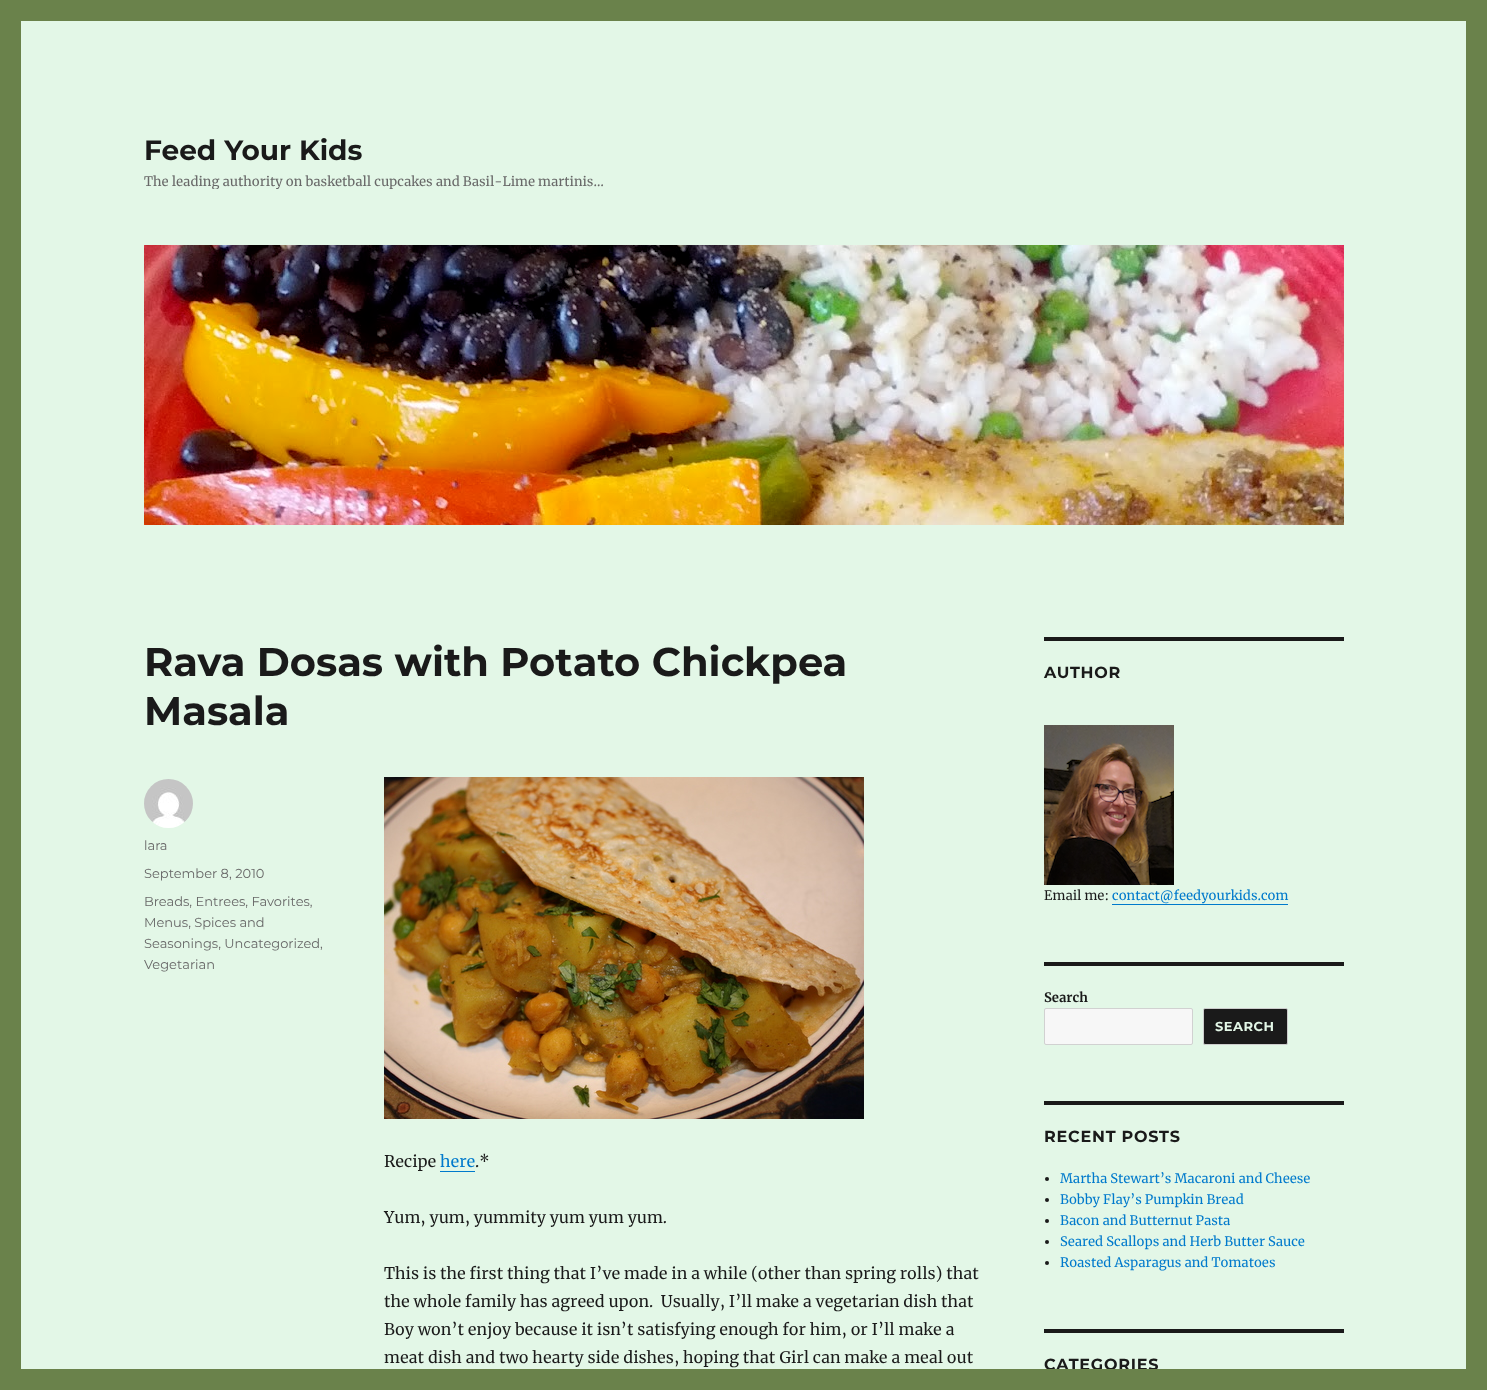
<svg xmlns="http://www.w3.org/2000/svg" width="1487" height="1390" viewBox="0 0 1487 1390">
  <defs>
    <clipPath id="clip1"><rect x="144" y="133" width="459" height="56"/></clipPath>
  </defs>
  <rect width="100%" height="100%" fill="#6a824b"/>
  <rect x="21" y="21" width="1445" height="1348" fill="#e3f7e7"/>
  <text x="144" y="160" font-family="Montserrat" font-size="28" font-weight="100" fill="#1a1a1a">Feed Your Kids</text>
  <g clip-path="url(#clip1)">
    <text x="144" y="186" font-family="Merriweather" font-size="13" fill="#686868">The leading authority on basketball cupcakes and Basil-Lime martinis…</text>
  </g>
  <image x="144" y="245" width="1200" height="280" href="img1.png"/>
  <text x="144" y="676" font-family="Montserrat" font-size="40" font-weight="100" fill="#1a1a1a">Rava Dosas with Potato Chickpea</text>
  <text x="144" y="725" font-family="Montserrat" font-size="40" font-weight="100" fill="#1a1a1a">Masala</text>
  <image x="144" y="779" width="49" height="49" href="img2.png"/>
  <text x="144" y="850" font-family="'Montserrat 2'" font-size="13" font-weight="100" fill="#686868">lara</text>
  <text x="144" y="878" font-family="'Montserrat 2'" font-size="13" font-weight="100" fill="#686868">September 8, 2010</text>
  <text x="144" y="906" font-family="'Montserrat 2'" font-size="13" font-weight="100" fill="#686868">Breads, Entrees, Favorites,</text>
  <text x="144" y="927" font-family="'Montserrat 2'" font-size="13" font-weight="100" fill="#686868">Menus, Spices and</text>
  <text x="144" y="948" font-family="'Montserrat 2'" font-size="13" font-weight="100" fill="#686868">Seasonings, Uncategorized,</text>
  <text x="144" y="969" font-family="'Montserrat 2'" font-size="13" font-weight="100" fill="#686868">Vegetarian</text>
  <image x="384" y="777" width="480" height="342" href="img3.png"/>
  <text x="384" y="1167" font-family="Merriweather" font-size="16" fill="#1a1a1a">Recipe</text>
  <text x="440" y="1167" font-family="Merriweather" font-size="16" fill="#007acc">here</text>
  <rect x="440" y="1171" width="35" height="1" fill="#007acc"/>
  <text x="475" y="1167" font-family="Merriweather" font-size="16" fill="#1a1a1a">.*</text>
  <text x="384" y="1223" font-family="Merriweather" font-size="16" fill="#1a1a1a">Yum, yum, yummity yum yum yum.</text>
  <text x="384" y="1279" font-family="Merriweather" font-size="16" fill="#1a1a1a">This is the first thing that I’ve made in a while (other than spring rolls) that</text>
  <text x="384" y="1307" font-family="Merriweather" font-size="16" fill="#1a1a1a" xml:space="preserve">the whole family has agreed upon.  Usually, I’ll make a vegetarian dish that</text>
  <text x="384" y="1335" font-family="Merriweather" font-size="16" fill="#1a1a1a">Boy won’t enjoy because it isn’t satisfying enough for him, or I’ll make a</text>
  <text x="384" y="1363" font-family="Merriweather" font-size="16" fill="#1a1a1a">meat dish and two hearty side dishes, hoping that Girl can make a meal out</text>
  <rect x="1044" y="637" width="300" height="4" fill="#1a1a1a"/>
  <text x="1044" y="678" font-family="Montserrat" font-size="16" font-weight="100" letter-spacing="0.75" fill="#1a1a1a">AUTHOR</text>
  <image x="1044" y="725" width="130" height="160" href="img4.png"/>
  <text x="1044" y="900" font-family="Merriweather" font-size="13" fill="#1a1a1a">Email me:</text>
  <text x="1112" y="900" font-family="Merriweather" font-size="13" fill="#007acc">contact@feedyourkids.com</text>
  <rect x="1112" y="904" width="176" height="1" fill="#007acc"/>
  <rect x="1044" y="962" width="300" height="4" fill="#1a1a1a"/>
  <text x="1044" y="1002" font-family="Merriweather" font-size="13" font-weight="bold" fill="#1a1a1a">Search</text>
  <rect x="1044.5" y="1008.5" width="148" height="36" rx="1.5" fill="#f7f7f7" stroke="#d1d1d1"/>
  <rect x="1203.5" y="1008.5" width="84" height="36" rx="1.5" fill="#1a1a1a" stroke="#cccccc"/>
  <text x="1215" y="1031" font-family="Montserrat" font-size="13" font-weight="100" letter-spacing="0.5" fill="#e3f7e7">SEARCH</text>
  <rect x="1044" y="1101" width="300" height="4" fill="#1a1a1a"/>
  <text x="1044" y="1142" font-family="Montserrat" font-size="16" font-weight="100" letter-spacing="0.75" fill="#1a1a1a">RECENT POSTS</text>
  <circle cx="1047" cy="1179" r="2" fill="#1a1a1a"/>
  <text x="1060" y="1183" font-family="Merriweather" font-size="13" fill="#007acc">Martha Stewart’s Macaroni and Cheese</text>
  <circle cx="1047" cy="1200" r="2" fill="#1a1a1a"/>
  <text x="1060" y="1204" font-family="Merriweather" font-size="13" fill="#007acc">Bobby Flay’s Pumpkin Bread</text>
  <circle cx="1047" cy="1221" r="2" fill="#1a1a1a"/>
  <text x="1060" y="1225" font-family="Merriweather" font-size="13" fill="#007acc">Bacon and Butternut Pasta</text>
  <circle cx="1047" cy="1242" r="2" fill="#1a1a1a"/>
  <text x="1060" y="1246" font-family="Merriweather" font-size="13" fill="#007acc">Seared Scallops and Herb Butter Sauce</text>
  <circle cx="1047" cy="1263" r="2" fill="#1a1a1a"/>
  <text x="1060" y="1267" font-family="Merriweather" font-size="13" fill="#007acc">Roasted Asparagus and Tomatoes</text>
  <rect x="1044" y="1329" width="300" height="4" fill="#1a1a1a"/>
  <text x="1044" y="1370" font-family="Montserrat" font-size="16" font-weight="100" letter-spacing="0.75" fill="#1a1a1a">CATEGORIES</text>
  <rect x="1046" y="1369" width="111" height="2" fill="#6a824b"/>
</svg>
